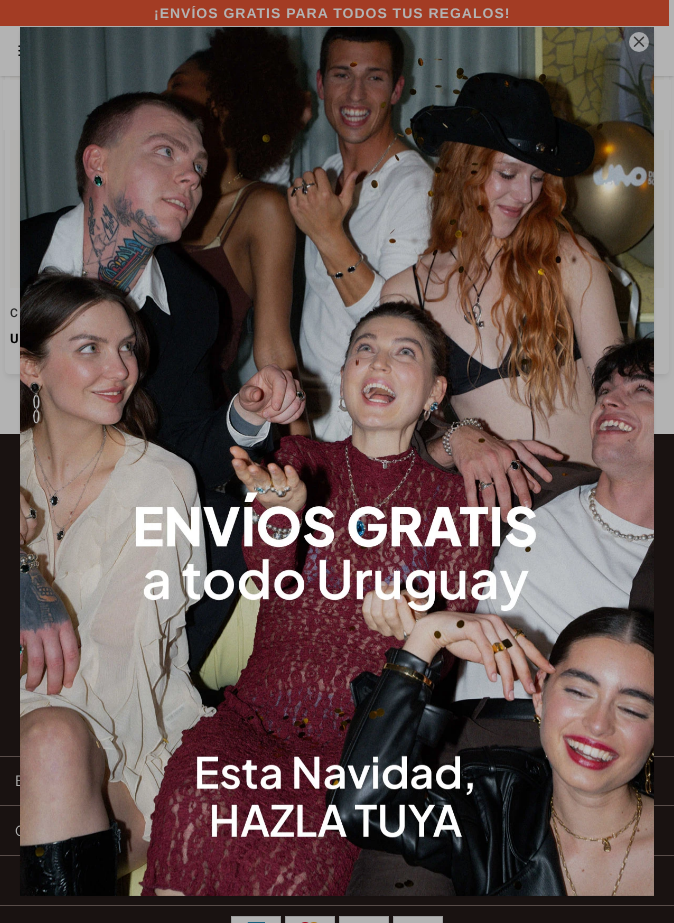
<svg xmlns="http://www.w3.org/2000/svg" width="674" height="923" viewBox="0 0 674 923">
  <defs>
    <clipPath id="clip1"><path d="M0 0H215V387H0ZM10-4H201C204-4 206-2 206 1V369C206 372 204 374 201 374H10C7 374 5 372 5 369V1C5-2 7-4 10-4Z" clip-rule="evenodd"/></clipPath>
    <filter id="blur1" x="-50%" y="-200%" width="200%" height="500%"><feGaussianBlur stdDeviation="3"/></filter>
    <clipPath id="clip2"><path d="M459 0H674V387H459ZM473-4H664C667-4 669-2 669 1V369C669 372 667 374 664 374H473C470 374 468 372 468 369V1C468-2 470-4 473-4Z" clip-rule="evenodd"/></clipPath>
    <filter id="blur2" x="-50%" y="-200%" width="200%" height="500%"><feGaussianBlur stdDeviation="1"/></filter>
    <filter id="blur3" x="-50%" y="-200%" width="200%" height="500%"><feGaussianBlur stdDeviation="1.5"/></filter>
    <clipPath id="clip3"><rect x="5" y="6" width="654" height="14"/></clipPath>
  </defs>
  <rect width="100%" height="100%" fill="#b3b3b3"/>
  <g clip-path="url(#clip1)">
    <rect x="6" y="1" width="199" height="376" rx="4" fill="#000000" fill-opacity="0.1" filter="url(#blur1)"/>
  </g>
  <image x="10" y="76" width="10" height="212" href="img2.png"/>
  <g clip-path="url(#clip2)">
    <rect x="469" y="1" width="199" height="376" rx="4" fill="#000000" fill-opacity="0.1" filter="url(#blur1)"/>
  </g>
  <image x="654" y="76" width="10" height="212" href="img3.png"/>
  <rect x="1" y="2" width="672" height="74" fill="#000000" fill-opacity="0.1" filter="url(#blur2)"/>
  <rect x="0" y="1" width="674" height="76" fill="#000000" fill-opacity="0.1" filter="url(#blur3)"/>
  <rect x="0" y="0" width="674" height="76" fill="#b3b3b3"/>
  <rect x="0" y="0" width="669" height="26" fill="#a33c24"/>
  <g clip-path="url(#clip3)">
    <text x="154" y="18" font-family="Liberation Sans" font-size="14" font-weight="bold" letter-spacing="1" fill="#b3b3b3">¡ENVÍOS GRATIS PARA TODOS TUS REGALOS!</text>
  </g>
  <image x="18" y="45" width="2" height="11" href="img1.png"/>
  <rect x="3" y="80" width="668" height="50" fill="#b3b3b3"/>
  <text x="10" y="317" font-family="Roboto" font-size="12" font-weight="500" fill="#272727">C</text>
  <text x="10" y="343" font-family="Roboto" font-size="13" font-weight="bold" fill="#000000">U</text>
  <rect x="0" y="434" width="674" height="489" fill="#191211"/>
  <rect x="0" y="756" width="674" height="1" fill="#584c49"/>
  <text x="15" y="786" font-family="Merriweather Sans" font-size="14" font-weight="300" fill="#b3b3b3">E</text>
  <rect x="0" y="805" width="674" height="1" fill="#584c49"/>
  <text x="15" y="836" font-family="Merriweather Sans" font-size="14" font-weight="300" fill="#b3b3b3">C</text>
  <rect x="0" y="855" width="674" height="1" fill="#584c49"/>
  <rect x="0" y="905" width="674" height="1" fill="#584c49"/>
  <rect x="231.5" y="916.5" width="49" height="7" fill="#b3b3b3" stroke="#9d9d9d"/>
  <image x="247" y="922" width="18" height="1" href="img4.png"/>
  <rect x="285.5" y="916.5" width="49" height="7" fill="#b3b3b3" stroke="#9d9d9d"/>
  <image x="301" y="922" width="17" height="1" href="img5.png"/>
  <rect x="339.5" y="916.5" width="49" height="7" fill="#b3b3b3" stroke="#9d9d9d"/>
  <rect x="393.5" y="916.5" width="49" height="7" fill="#b3b3b3" stroke="#9d9d9d"/>
  <rect x="20" y="28" width="634" height="869" rx="5" fill="#000000" fill-opacity="0.1" filter="url(#blur3)"/>
  <image x="20" y="27" width="634" height="869" href="img6.png"/>
  <circle cx="639" cy="42" r="10" fill="#ffffff" fill-opacity="0.5"/>
  <image x="633" y="36" width="12" height="11" href="img7.png"/>
</svg>
